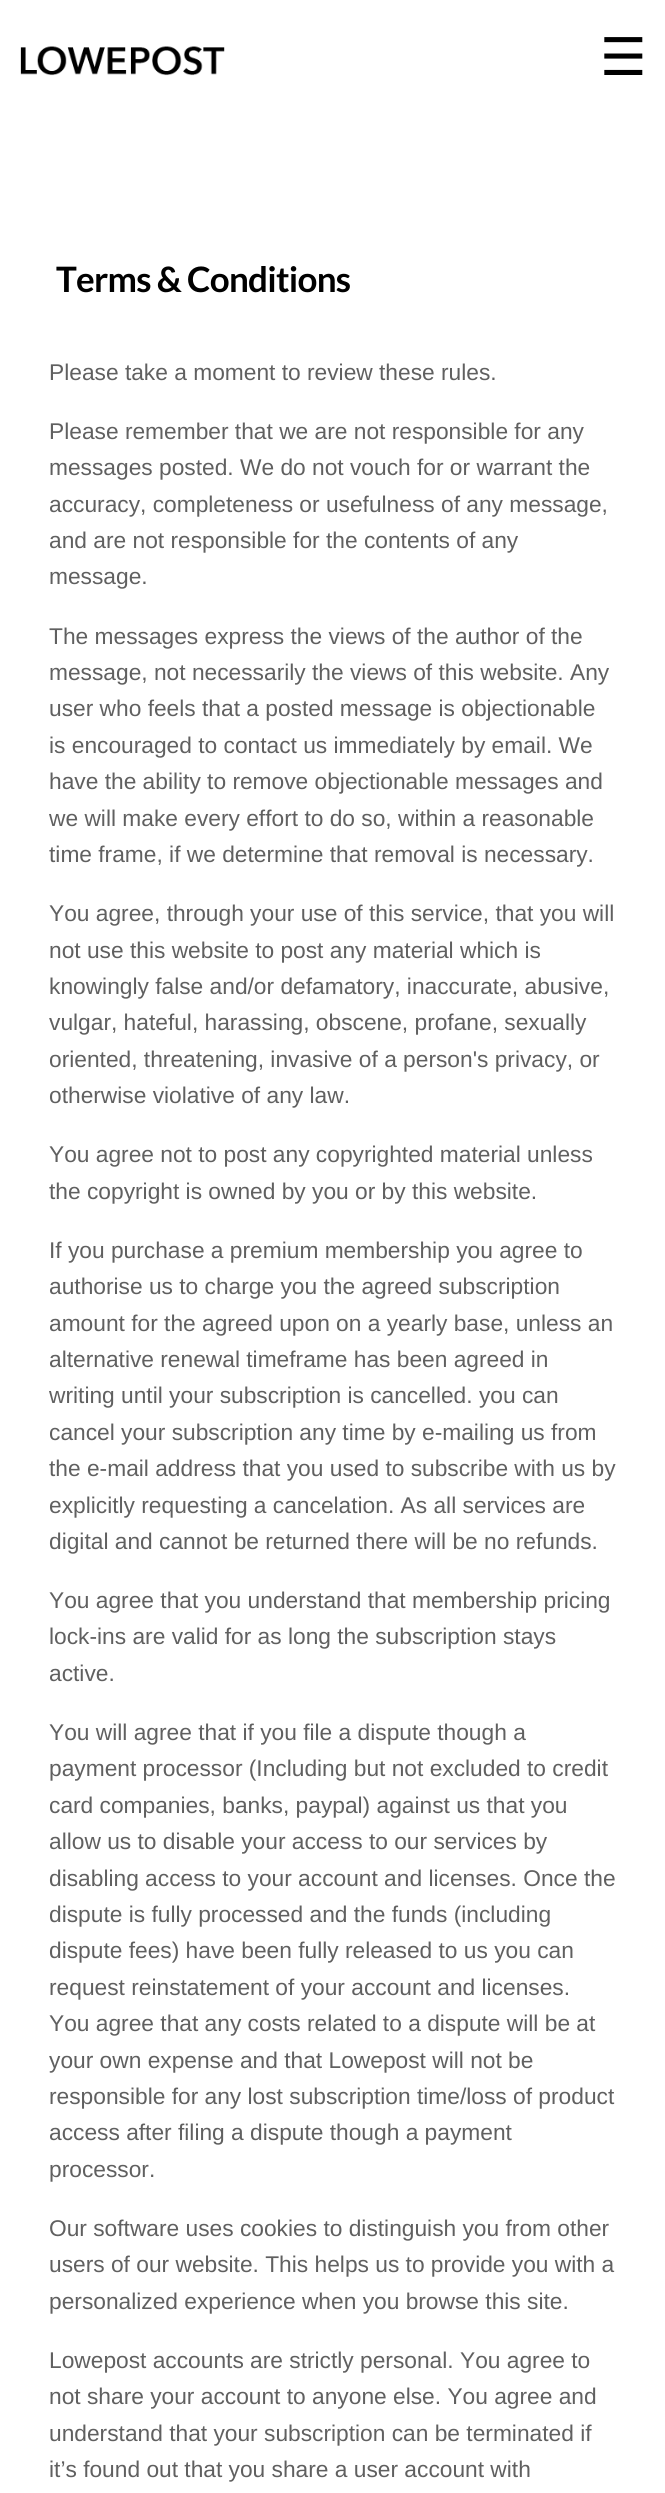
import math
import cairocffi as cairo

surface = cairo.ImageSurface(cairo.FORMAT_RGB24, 665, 2493)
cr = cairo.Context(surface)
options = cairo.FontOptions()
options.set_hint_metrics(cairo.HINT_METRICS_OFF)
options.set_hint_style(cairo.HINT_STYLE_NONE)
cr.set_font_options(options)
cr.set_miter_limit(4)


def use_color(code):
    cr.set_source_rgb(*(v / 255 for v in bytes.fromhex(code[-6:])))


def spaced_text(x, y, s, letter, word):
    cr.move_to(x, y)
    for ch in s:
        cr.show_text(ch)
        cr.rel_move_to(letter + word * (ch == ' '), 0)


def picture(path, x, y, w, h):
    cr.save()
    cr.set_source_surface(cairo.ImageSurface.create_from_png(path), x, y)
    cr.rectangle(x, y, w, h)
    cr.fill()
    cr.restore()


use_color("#ffffff")
cr.paint()
picture("img1.png", 20, 46, 205, 30)
cr.select_font_face("DejaVu Sans")
cr.set_font_size(52)
use_color("#000000")
cr.move_to(600, 75)
cr.show_text("☰")
cr.select_font_face("Lato", cairo.FONT_SLANT_NORMAL, cairo.FONT_WEIGHT_BOLD)
cr.set_font_size(35)
spaced_text(56, 292, "Terms & Conditions", -0.75, 0)
cr.select_font_face("Liberation Sans")
cr.set_font_size(22.75)
use_color("#606060")
cr.move_to(49, 380)
cr.show_text("Please take a moment to review these rules.")
cr.move_to(49, 439)
cr.show_text("Please remember that we are not responsible for any")
cr.move_to(49, 475)
cr.show_text("messages posted. We do not vouch for or warrant the")
cr.move_to(49, 512)
cr.show_text("accuracy, completeness or usefulness of any message,")
cr.move_to(49, 548)
cr.show_text("and are not responsible for the contents of any")
cr.move_to(49, 584)
cr.show_text("message.")
cr.move_to(49, 644)
cr.show_text("The messages express the views of the author of the")
cr.move_to(49, 680)
cr.show_text("message, not necessarily the views of this website. Any")
cr.move_to(49, 716)
cr.show_text("user who feels that a posted message is objectionable")
cr.move_to(49, 753)
cr.show_text("is encouraged to contact us immediately by email. We")
cr.move_to(49, 789)
cr.show_text("have the ability to remove objectionable messages and")
cr.move_to(49, 826)
cr.show_text("we will make every effort to do so, within a reasonable")
cr.move_to(49, 862)
cr.show_text("time frame, if we determine that removal is necessary.")
cr.move_to(49, 921)
cr.show_text("You agree, through your use of this service, that you will")
cr.move_to(49, 958)
cr.show_text("not use this website to post any material which is")
cr.move_to(49, 994)
cr.show_text("knowingly false and/or defamatory, inaccurate, abusive,")
cr.move_to(49, 1030)
cr.show_text("vulgar, hateful, harassing, obscene, profane, sexually")
cr.move_to(49, 1067)
cr.show_text("oriented, threatening, invasive of a person's privacy, or")
cr.move_to(49, 1103)
cr.show_text("otherwise violative of any law.")
cr.move_to(49, 1162)
cr.show_text("You agree not to post any copyrighted material unless")
cr.move_to(49, 1199)
cr.show_text("the copyright is owned by you or by this website.")
cr.move_to(49, 1258)
cr.show_text("If you purchase a premium membership you agree to")
cr.move_to(49, 1294)
cr.show_text("authorise us to charge you the agreed subscription")
cr.move_to(49, 1331)
cr.show_text("amount for the agreed upon on a yearly base, unless an")
cr.move_to(49, 1367)
cr.show_text("alternative renewal timeframe has been agreed in")
cr.move_to(49, 1403)
cr.show_text("writing until your subscription is cancelled. you can")
cr.move_to(49, 1440)
cr.show_text("cancel your subscription any time by e-mailing us from")
cr.move_to(49, 1476)
cr.show_text("the e-mail address that you used to subscribe with us by")
cr.move_to(49, 1513)
cr.show_text("explicitly requesting a cancelation. As all services are")
cr.move_to(49, 1549)
cr.show_text("digital and cannot be returned there will be no refunds.")
cr.move_to(49, 1608)
cr.show_text("You agree that you understand that membership pricing")
cr.move_to(49, 1644)
cr.show_text("lock-ins are valid for as long the subscription stays")
cr.move_to(49, 1681)
cr.show_text("active.")
cr.move_to(49, 1740)
cr.show_text("You will agree that if you file a dispute though a")
cr.move_to(49, 1776)
cr.show_text("payment processor (Including but not excluded to credit")
cr.move_to(49, 1813)
cr.show_text("card companies, banks, paypal) against us that you")
cr.move_to(49, 1849)
cr.show_text("allow us to disable your access to our services by")
cr.move_to(49, 1886)
cr.show_text("disabling access to your account and licenses. Once the")
cr.move_to(49, 1922)
cr.show_text("dispute is fully processed and the funds (including")
cr.move_to(49, 1958)
cr.show_text("dispute fees) have been fully released to us you can")
cr.move_to(49, 1995)
cr.show_text("request reinstatement of your account and licenses.")
cr.move_to(49, 2031)
cr.show_text("You agree that any costs related to a dispute will be at")
cr.move_to(49, 2068)
cr.show_text("your own expense and that Lowepost will not be")
cr.move_to(49, 2104)
cr.show_text("responsible for any lost subscription time/loss of product")
cr.move_to(49, 2140)
cr.show_text("access after filing a dispute though a payment")
cr.move_to(49, 2177)
cr.show_text("processor.")
cr.move_to(49, 2236)
cr.show_text("Our software uses cookies to distinguish you from other")
cr.move_to(49, 2272)
cr.show_text("users of our website. This helps us to provide you with a")
cr.move_to(49, 2309)
cr.show_text("personalized experience when you browse this site.")
cr.move_to(49, 2368)
cr.show_text("Lowepost accounts are strictly personal. You agree to")
cr.move_to(49, 2404)
cr.show_text("not share your account to anyone else. You agree and")
cr.move_to(49, 2441)
cr.show_text("understand that your subscription can be terminated if")
cr.move_to(49, 2477)
cr.show_text("it’s found out that you share a user account with")
surface.write_to_png("result.png")
